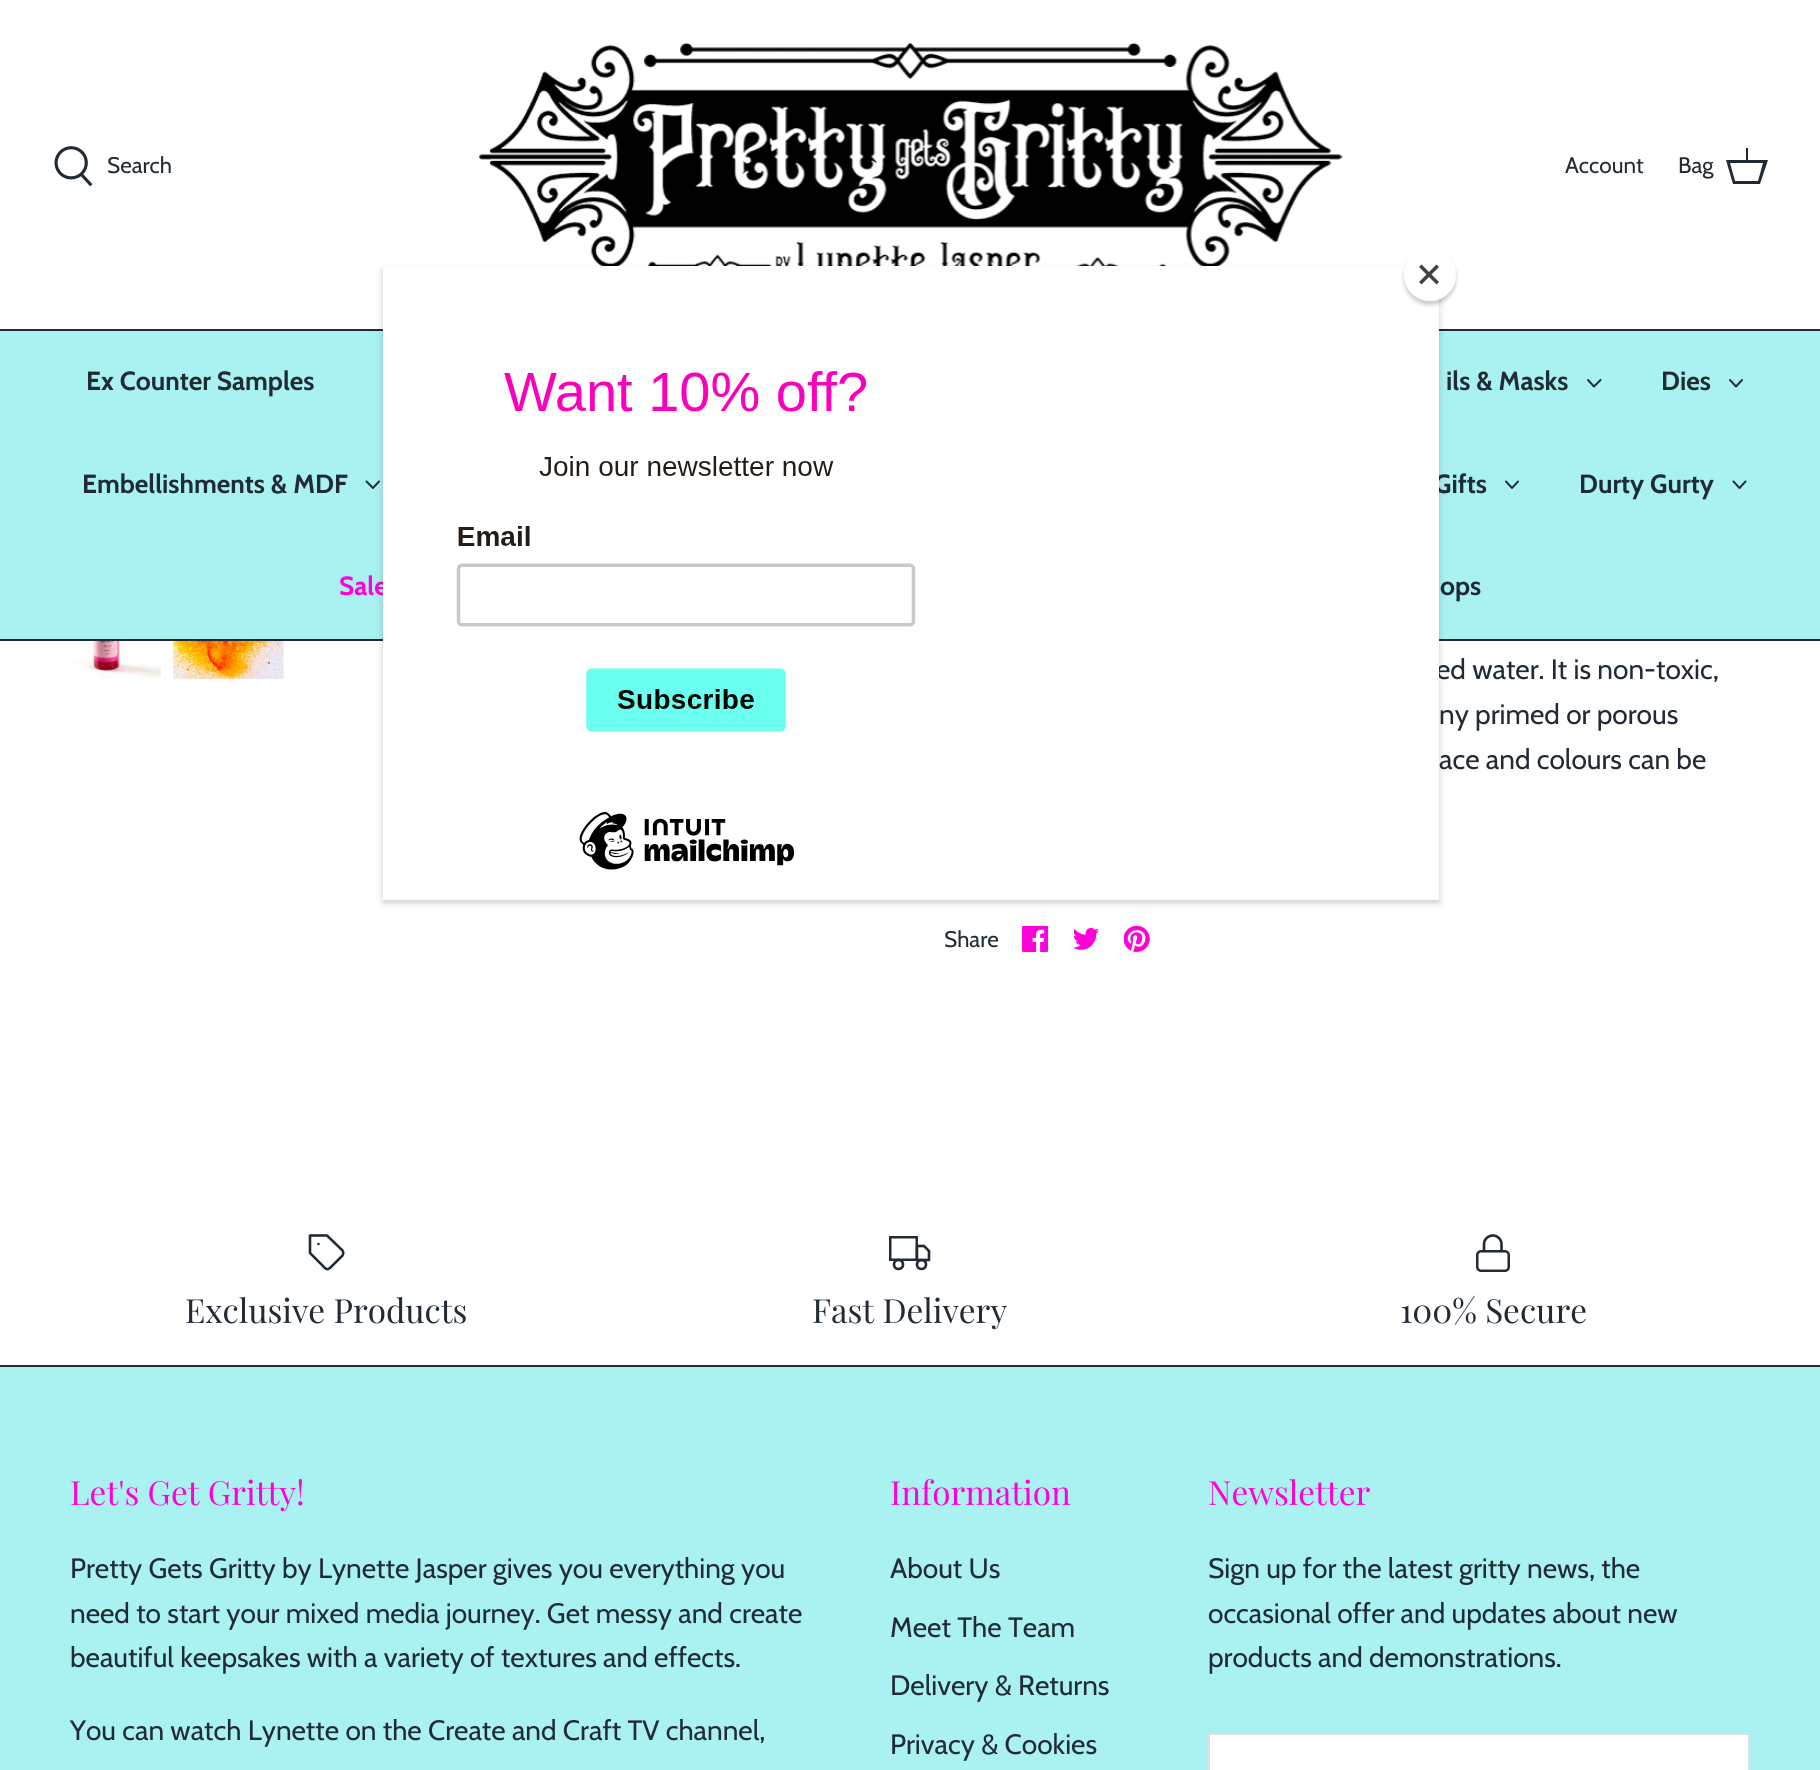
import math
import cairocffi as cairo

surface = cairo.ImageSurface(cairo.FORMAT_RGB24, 1820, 1770)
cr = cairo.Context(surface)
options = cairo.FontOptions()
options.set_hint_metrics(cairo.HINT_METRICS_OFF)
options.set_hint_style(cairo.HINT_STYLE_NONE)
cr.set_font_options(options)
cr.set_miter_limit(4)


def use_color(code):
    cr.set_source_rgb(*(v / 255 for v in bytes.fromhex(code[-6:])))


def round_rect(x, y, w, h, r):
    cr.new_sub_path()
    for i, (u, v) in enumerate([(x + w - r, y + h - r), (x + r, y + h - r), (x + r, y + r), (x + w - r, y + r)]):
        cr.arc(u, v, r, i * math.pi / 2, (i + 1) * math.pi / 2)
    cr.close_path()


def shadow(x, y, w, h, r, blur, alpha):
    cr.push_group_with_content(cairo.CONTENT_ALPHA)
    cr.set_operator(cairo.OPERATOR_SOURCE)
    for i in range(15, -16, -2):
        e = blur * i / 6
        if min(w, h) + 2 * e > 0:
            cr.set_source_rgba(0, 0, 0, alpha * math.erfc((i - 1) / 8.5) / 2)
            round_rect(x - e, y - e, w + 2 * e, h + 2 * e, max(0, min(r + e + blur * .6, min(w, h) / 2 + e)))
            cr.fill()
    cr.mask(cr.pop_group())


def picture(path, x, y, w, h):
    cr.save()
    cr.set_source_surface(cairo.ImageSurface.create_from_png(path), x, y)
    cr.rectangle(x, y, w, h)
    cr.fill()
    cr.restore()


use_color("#ffffff")
cr.paint()
use_color("#212b36")
cr.rectangle(0, 329, 1820, 2)
cr.fill()
picture("img1.png", 54, 146, 39, 41)
cr.select_font_face("Cabin")
cr.set_font_size(22.5)
cr.move_to(107, 173)
cr.show_text("Search")
picture("img2.png", 479, 42, 864, 224)
cr.move_to(1565, 173)
cr.show_text("Account")
cr.move_to(1678, 173)
cr.show_text("Bag")
cr.new_path()
cr.move_to(1746, 160)
cr.line_to(1746, 148)
cr.line_to(1748, 148)
cr.line_to(1748, 160)
cr.line_to(1768, 160)
cr.line_to(1760, 184)
cr.line_to(1733, 184)
cr.line_to(1726, 160)
cr.close_path()
cr.move_to(1730, 163)
cr.line_to(1735, 181)
cr.line_to(1758, 181)
cr.line_to(1763, 163)
cr.close_path()
cr.fill()
cr.rectangle(0, 639, 1820, 2)
cr.fill()
use_color("#aaf1f1")
cr.rectangle(0, 331, 1820, 308)
cr.fill()
cr.select_font_face("Cabin", cairo.FONT_SLANT_NORMAL, cairo.FONT_WEIGHT_BOLD)
cr.set_font_size(26.25)
use_color("#212b36")
cr.move_to(86, 390)
cr.show_text("Ex Counter Samples")
cr.move_to(1446, 390)
cr.show_text("ils & Masks")
cr.new_path()
cr.move_to(1588, 380)
cr.line_to(1594, 386.5)
cr.line_to(1600.5, 380)
cr.set_line_cap(cairo.LINE_CAP_ROUND)
cr.set_line_join(cairo.LINE_JOIN_ROUND)
cr.stroke()
cr.move_to(1661, 390)
cr.show_text("Dies")
cr.new_path()
cr.move_to(1730, 380)
cr.line_to(1736, 386.5)
cr.line_to(1742, 380)
cr.stroke()
cr.move_to(82, 493)
cr.show_text("Embellishments & MDF")
cr.new_path()
cr.move_to(366.5, 481.5)
cr.line_to(373, 488)
cr.line_to(379, 481.5)
cr.stroke()
cr.move_to(1434, 493)
cr.show_text("Gifts")
cr.new_path()
cr.move_to(1506, 481.5)
cr.line_to(1512, 488)
cr.line_to(1518, 481.5)
cr.stroke()
cr.move_to(1579, 493)
cr.show_text("Durty Gurty")
cr.new_path()
cr.move_to(1733.5, 481.5)
cr.line_to(1739.5, 488)
cr.line_to(1745.5, 481.5)
cr.stroke()
use_color("#ff00d9")
cr.move_to(339, 595)
cr.show_text("Sale")
use_color("#212b36")
cr.move_to(1440, 595)
cr.show_text("ops")
use_color("#000000")
shadow(383, 270, 1056, 633, 0, 3.5, 0.2)
cr.select_font_face("Cabin")
cr.set_font_size(28)
use_color("#212b36")
cr.move_to(1436, 679)
cr.show_text("ed water. It is non-toxic,")
picture("img3.png", 383, 266, 1056, 634)
use_color("#000000")
shadow(1404, 252, 52, 53, 26, 2, 0.2)
use_color("#ffffff")
cr.arc(1430, 275, 26, 0, 2 * math.pi)
cr.fill()
use_color("#414141")
cr.new_path()
cr.move_to(1436.5, 264.5)
cr.line_to(1439, 267)
cr.line_to(1421.5, 284.5)
cr.line_to(1419, 282)
cr.close_path()
cr.fill()
cr.new_path()
cr.move_to(1419, 267)
cr.line_to(1421.5, 264.5)
cr.line_to(1439, 282)
cr.line_to(1436.5, 284.5)
cr.close_path()
cr.fill()
picture("img4.png", 72, 641, 89, 38)
picture("img5.png", 173, 641, 111, 39)
use_color("#212b36")
cr.move_to(1439, 724)
cr.show_text("ny primed or porous")
cr.move_to(1439, 769)
cr.show_text("ace and colours can be")
cr.set_font_size(22.5)
cr.move_to(944, 947)
cr.show_text("Share")
picture("img6.png", 1022, 926, 26, 26)
picture("img7.png", 1073, 927, 26, 23)
picture("img8.png", 1124, 926, 26, 26)
use_color("#aaf1f1")
cr.rectangle(0, 1367, 1820, 403)
cr.fill()
cr.new_path()
cr.move_to(342.5, 1255.5)
cr.line_to(332, 1266)
cr.curve_to(327.5, 1270.5, 326.5, 1270, 322.5, 1265.5)
cr.line_to(310, 1253)
cr.line_to(310, 1235.5)
cr.line_to(327, 1235.5)
cr.line_to(342.5, 1250.5)
cr.curve_to(343.5, 1252, 343.5, 1254, 342.5, 1255.5)
cr.close_path()
cr.move_to(318.5, 1244)
cr.line_to(318.5, 1244)
use_color("#212b36")
cr.set_line_width(2.6)
cr.stroke()
cr.select_font_face("Playfair Display")
cr.set_font_size(33.25)
cr.move_to(185, 1323)
cr.show_text("Exclusive Products")
cr.rectangle(890.25, 1237.25, 26.5, 22.5)
cr.set_line_width(2.5)
cr.set_line_cap(cairo.LINE_CAP_BUTT)
cr.set_line_join(cairo.LINE_JOIN_MITER)
cr.stroke()
cr.new_path()
cr.move_to(917, 1246)
cr.line_to(924, 1246)
cr.line_to(929, 1251)
cr.line_to(929, 1260)
cr.line_to(917, 1260)
cr.close_path()
cr.set_line_width(2.6)
cr.set_line_cap(cairo.LINE_CAP_ROUND)
cr.set_line_join(cairo.LINE_JOIN_ROUND)
cr.stroke()
cr.arc(898.5, 1264.5, 4.5, 0, 2 * math.pi)
cr.set_line_cap(cairo.LINE_CAP_BUTT)
cr.set_line_join(cairo.LINE_JOIN_MITER)
cr.stroke()
cr.arc(921.5, 1264.5, 4.5, 0, 2 * math.pi)
cr.stroke()
cr.move_to(812, 1323)
cr.show_text("Fast Delivery")
round_rect(1477.25, 1251.25, 31.5, 19.5, 3.75)
cr.set_line_width(2.5)
cr.stroke()
cr.new_path()
cr.move_to(1484, 1251)
cr.line_to(1484, 1244)
cr.curve_to(1484, 1239.5, 1488, 1235.5, 1493, 1235.5)
cr.curve_to(1497.5, 1235.5, 1501.5, 1239.5, 1501.5, 1244)
cr.line_to(1501.5, 1251)
cr.set_line_width(2.6)
cr.set_line_cap(cairo.LINE_CAP_ROUND)
cr.set_line_join(cairo.LINE_JOIN_ROUND)
cr.stroke()
cr.move_to(1400, 1323)
cr.show_text("100% Secure")
cr.rectangle(0, 1365, 1820, 2)
cr.fill()
use_color("#ff00d9")
cr.move_to(70, 1505)
cr.show_text("Let's Get Gritty!")
cr.select_font_face("Cabin")
cr.set_font_size(28)
use_color("#212b36")
cr.move_to(70, 1578)
cr.show_text("Pretty Gets Gritty by Lynette Jasper gives you everything you")
cr.move_to(70, 1623)
cr.show_text("need to start your mixed media journey. Get messy and create")
cr.move_to(70, 1667)
cr.show_text("beautiful keepsakes with a variety of textures and effects.")
cr.move_to(70, 1740)
cr.show_text("You can watch Lynette on the Create and Craft TV channel,")
cr.select_font_face("Playfair Display")
cr.set_font_size(33.25)
use_color("#ff00d9")
cr.move_to(890, 1505)
cr.show_text("Information")
cr.select_font_face("Cabin")
cr.set_font_size(28)
use_color("#212b36")
cr.move_to(890, 1578)
cr.show_text("About Us")
cr.move_to(890, 1637)
cr.show_text("Meet The Team")
cr.move_to(890, 1695)
cr.show_text("Delivery & Returns")
cr.move_to(890, 1754)
cr.show_text("Privacy & Cookies")
cr.select_font_face("Playfair Display")
cr.set_font_size(33.25)
use_color("#ff00d9")
cr.move_to(1208, 1505)
cr.show_text("Newsletter")
cr.select_font_face("Cabin")
cr.set_font_size(28)
use_color("#212b36")
cr.move_to(1208, 1578)
cr.show_text("Sign up for the latest gritty news, the")
cr.move_to(1208, 1623)
cr.show_text("occasional offer and updates about new")
cr.move_to(1208, 1667)
cr.show_text("products and demonstrations.")
use_color("#ffffff")
cr.rectangle(1209, 1734, 540, 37)
cr.fill_preserve()
use_color("#dedfe1")
cr.set_line_width(2)
cr.set_line_cap(cairo.LINE_CAP_BUTT)
cr.set_line_join(cairo.LINE_JOIN_MITER)
cr.stroke()
surface.write_to_png("result.png")
